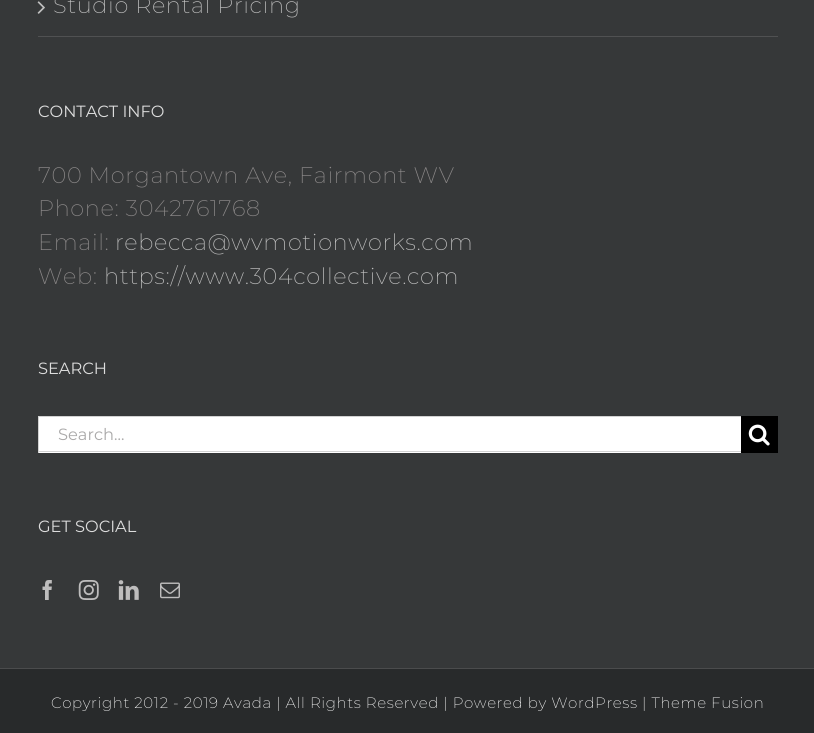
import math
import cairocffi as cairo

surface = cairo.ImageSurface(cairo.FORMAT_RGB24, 814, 733)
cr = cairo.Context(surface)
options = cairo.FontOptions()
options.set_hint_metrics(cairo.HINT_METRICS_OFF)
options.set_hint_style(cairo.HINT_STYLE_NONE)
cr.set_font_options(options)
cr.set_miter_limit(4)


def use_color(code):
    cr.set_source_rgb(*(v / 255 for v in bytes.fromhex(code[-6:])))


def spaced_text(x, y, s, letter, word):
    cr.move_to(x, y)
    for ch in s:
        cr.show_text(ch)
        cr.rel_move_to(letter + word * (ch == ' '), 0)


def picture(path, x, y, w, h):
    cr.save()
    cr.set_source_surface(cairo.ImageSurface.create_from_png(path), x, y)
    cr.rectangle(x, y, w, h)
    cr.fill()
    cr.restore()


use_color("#363839")
cr.paint()
use_color("#505152")
cr.rectangle(38, 36, 740, 1)
cr.fill()
picture("img1.png", 37, 1, 8, 13)
cr.select_font_face("Montserrat ExtraLight")
cr.set_font_size(22.5)
use_color("#bfbfbf")
spaced_text(53, 13, "Studio Rental Pricing", 0.62, 0)
cr.select_font_face("Montserrat")
cr.set_font_size(16.25)
use_color("#dddddd")
cr.move_to(38, 117)
cr.show_text("CONTACT INFO")
cr.select_font_face("Montserrat ExtraLight")
cr.set_font_size(22.5)
use_color("#8c8989")
spaced_text(38, 183, "700 Morgantown Ave, Fairmont WV", 0.62, 0)
spaced_text(38, 216, "Phone: 3042761768", 0.62, 0)
spaced_text(38, 250, "Email:", 0.62, 0)
use_color("#bfbfbf")
spaced_text(115, 250, "rebecca@wvmotionworks.com", 0.62, 0)
use_color("#8c8989")
spaced_text(38, 284, "Web:", 0.62, 0)
use_color("#bfbfbf")
spaced_text(104, 284, "https://www.304collective.com", 0.62, 0)
cr.select_font_face("Montserrat")
cr.set_font_size(16.25)
use_color("#dddddd")
cr.move_to(38, 374)
cr.show_text("SEARCH")
use_color("#ffffff")
cr.rectangle(39, 417, 702, 36)
cr.fill()
use_color("#d2d2d2")
cr.rectangle(38, 416, 703, 1)
cr.fill()
cr.rectangle(38, 451, 703, 1)
cr.fill()
cr.rectangle(38, 416, 1, 37)
cr.fill()
use_color("#aaa9a9")
cr.move_to(58, 440)
cr.show_text("Search...")
use_color("#000000")
cr.rectangle(741, 416, 37, 37)
cr.fill()
picture("img2.png", 748, 424, 22, 22)
use_color("#dddddd")
cr.move_to(38, 532)
cr.show_text("GET SOCIAL")
picture("img3.png", 42, 580, 10, 20)
picture("img4.png", 78, 580, 21, 20)
picture("img5.png", 118, 580, 21, 20)
picture("img6.png", 160, 582, 20, 17)
use_color("#282a2b")
cr.rectangle(0, 669, 814, 64)
cr.fill()
use_color("#4b4c4d")
cr.rectangle(0, 668, 814, 1)
cr.fill()
cr.select_font_face("Montserrat ExtraLight")
cr.set_font_size(15)
use_color("#ffffff")
spaced_text(51, 708, "Copyright 2012 - 2019 Avada | All Rights Reserved | Powered by WordPress | Theme Fusion", 0.62, 0)
surface.write_to_png("result.png")
